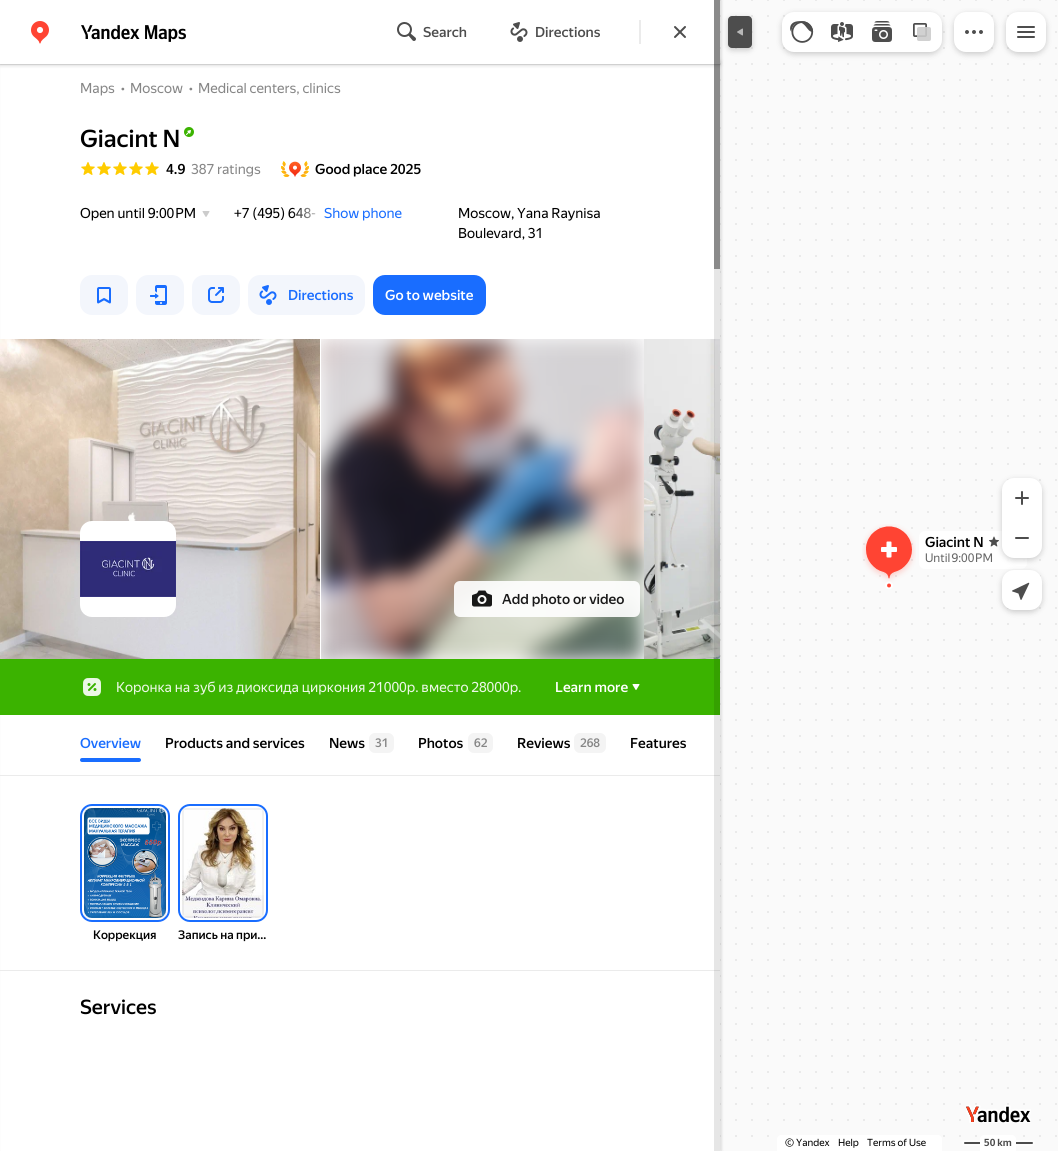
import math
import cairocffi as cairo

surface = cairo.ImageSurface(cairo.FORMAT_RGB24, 1058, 1151)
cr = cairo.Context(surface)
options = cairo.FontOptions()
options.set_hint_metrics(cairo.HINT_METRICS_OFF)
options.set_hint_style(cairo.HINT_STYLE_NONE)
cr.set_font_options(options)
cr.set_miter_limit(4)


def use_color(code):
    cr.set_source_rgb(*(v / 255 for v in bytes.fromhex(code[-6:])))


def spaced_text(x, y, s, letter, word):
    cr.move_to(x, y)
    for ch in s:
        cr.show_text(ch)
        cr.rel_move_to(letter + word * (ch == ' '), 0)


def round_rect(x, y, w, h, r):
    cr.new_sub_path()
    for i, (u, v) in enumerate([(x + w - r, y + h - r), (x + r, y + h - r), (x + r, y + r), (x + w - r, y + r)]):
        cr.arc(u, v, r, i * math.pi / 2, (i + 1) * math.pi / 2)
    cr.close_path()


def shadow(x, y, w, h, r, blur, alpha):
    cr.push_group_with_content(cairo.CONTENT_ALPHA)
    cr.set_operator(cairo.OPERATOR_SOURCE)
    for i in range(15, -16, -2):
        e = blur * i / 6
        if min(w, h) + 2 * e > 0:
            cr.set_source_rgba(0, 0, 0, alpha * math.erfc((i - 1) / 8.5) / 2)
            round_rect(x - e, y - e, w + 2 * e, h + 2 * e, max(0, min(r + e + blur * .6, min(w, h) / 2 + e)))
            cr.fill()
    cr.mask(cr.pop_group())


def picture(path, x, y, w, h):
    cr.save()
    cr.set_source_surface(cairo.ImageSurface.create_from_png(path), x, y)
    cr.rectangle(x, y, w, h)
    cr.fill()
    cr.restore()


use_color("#ffffff")
cr.paint()
picture("img1.png", 720, 0, 338, 1151)
use_color("#000000")
shadow(2, 0, 720, 1151, 0, 1, 0.1)
use_color("#ffffff")
cr.rectangle(1, 65, 719, 1086)
cr.fill()
use_color("#ebebeb")
cr.rectangle(0, 64, 720, 1)
cr.fill()
use_color("#000000")
shadow(0, 61, 720, 4, 0, 2, 0.2)
shadow(728, 18, 24, 32, 4, 3, 0.2)
use_color("#ffffff")
cr.rectangle(0, 0, 720, 64)
cr.fill()
picture("img2.png", 31, 21, 18, 23)
picture("img3.png", 81, 25, 105, 17)
picture("img4.png", 397, 22, 19, 19)
cr.select_font_face("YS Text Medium")
cr.set_font_size(14)
use_color("#4d4d4d")
cr.move_to(423, 37)
cr.show_text("Search")
picture("img5.png", 510, 22, 18, 20)
cr.move_to(535, 37)
cr.show_text("Directions")
use_color("#ebebeb")
cr.rectangle(639, 20, 2, 24)
cr.fill()
picture("img6.png", 674, 26, 12, 12)
cr.select_font_face("YS Text")
use_color("#878787")
cr.move_to(80, 93)
cr.show_text("Maps")
cr.move_to(121, 93)
cr.show_text("•")
cr.move_to(130, 93)
cr.show_text("Moscow")
cr.move_to(189, 93)
cr.show_text("•")
cr.move_to(198, 93)
cr.show_text("Medical centers, clinics")
cr.select_font_face("YS Text Medium")
cr.set_font_size(24)
use_color("#000000")
cr.move_to(80, 147)
cr.show_text("Giacint N")
picture("img7.png", 184, 127, 10, 10)
picture("img8.png", 81, 162, 14, 13)
picture("img8.png", 97, 162, 14, 13)
picture("img8.png", 113, 162, 14, 13)
picture("img8.png", 129, 162, 14, 13)
picture("img8.png", 145, 162, 14, 13)
cr.set_font_size(14)
cr.move_to(166, 174)
cr.show_text("4.9")
cr.select_font_face("YS Text")
use_color("#878787")
cr.move_to(191, 174)
cr.show_text("387 ratings")
picture("img9.png", 281, 161, 28, 16)
cr.select_font_face("YS Text Medium")
use_color("#000000")
cr.move_to(315, 174)
cr.show_text("Good place 2025")
cr.select_font_face("YS Text")
cr.move_to(80, 218)
cr.show_text("Open until 9:00 PM")
picture("img10.png", 202, 211, 8, 6)
cr.move_to(234, 218)
cr.show_text("+7 (495) 648-")
gradient = cairo.LinearGradient(292, 213, 324, 213)
gradient.add_color_stop_rgba(0, 1, 1, 1, 0)
gradient.add_color_stop_rgba(1, 1, 1, 1, 1)
cr.set_source(gradient)
cr.rectangle(293, 207, 23, 12)
cr.fill()
use_color("#196dff")
cr.move_to(324, 218)
cr.show_text("Show phone")
use_color("#000000")
cr.move_to(458, 218)
cr.show_text("Moscow, Yana Raynisa")
cr.move_to(458, 238)
cr.show_text("Boulevard, 31")
use_color("#f3f6fc")
round_rect(80, 275, 48, 40, 12)
cr.fill()
picture("img11.png", 97, 287, 14, 17)
round_rect(136, 275, 48, 40, 12)
cr.fill()
picture("img12.png", 150, 285, 17, 20)
round_rect(192, 275, 48, 40, 12)
cr.fill()
picture("img13.png", 208, 287, 16, 16)
round_rect(248, 275, 117, 40, 12)
cr.fill()
picture("img14.png", 259, 285, 18, 20)
cr.select_font_face("YS Text Medium")
use_color("#196dff")
cr.move_to(288, 300)
cr.show_text("Directions")
round_rect(373, 275, 113, 40, 12)
cr.fill()
use_color("#ffffff")
cr.move_to(385, 300)
cr.show_text("Go to website")
picture("img15.png", 0, 339, 320, 320)
picture("img16.png", 321, 339, 322, 320)
picture("img17.png", 643, 339, 77, 320)
round_rect(80, 521, 96, 96, 12)
cr.fill()
picture("img18.png", 80, 541, 96, 56)
cr.set_source_rgba(1, 1, 1, 0.9)
round_rect(454, 581, 186, 36, 6)
cr.fill()
picture("img19.png", 472, 590, 20, 17)
use_color("#191919")
cr.move_to(502, 604)
cr.show_text("Add photo or video")
use_color("#3bb300")
cr.rectangle(0, 659, 720, 56)
cr.fill()
picture("img20.png", 83, 678, 18, 18)
cr.select_font_face("YS Text")
use_color("#ebf7e6")
cr.move_to(116, 692)
cr.show_text("Коронка на зуб из диоксида циркония 21000р. вместо 28000р.")
cr.select_font_face("YS Text Medium")
use_color("#ffffff")
cr.move_to(555, 692)
cr.show_text("Learn more")
picture("img21.png", 632, 684, 8, 6)
use_color("#196dff")
cr.move_to(80, 748)
cr.show_text("Overview")
use_color("#000000")
cr.move_to(165, 748)
cr.show_text("Products and services")
cr.move_to(329, 748)
cr.show_text("News")
use_color("#f4f4f4")
round_rect(369, 733, 25, 20, 6)
cr.fill()
cr.set_font_size(12)
use_color("#878787")
cr.move_to(375, 747)
cr.show_text("31")
cr.set_font_size(14)
use_color("#000000")
cr.move_to(418, 748)
cr.show_text("Photos")
use_color("#f4f4f4")
round_rect(468, 733, 25, 20, 6)
cr.fill()
cr.set_font_size(12)
use_color("#878787")
cr.move_to(474, 747)
cr.show_text("62")
cr.set_font_size(14)
use_color("#000000")
cr.move_to(517, 748)
cr.show_text("Reviews")
use_color("#f4f4f4")
round_rect(574, 733, 32, 20, 6)
cr.fill()
cr.set_font_size(12)
use_color("#878787")
cr.move_to(580, 747)
cr.show_text("268")
cr.set_font_size(14)
use_color("#000000")
cr.move_to(630, 748)
cr.show_text("Features")
use_color("#196dff")
round_rect(80, 758, 61, 4, 2)
cr.fill()
use_color("#ebebeb")
cr.rectangle(0, 775, 720, 1)
cr.fill()
round_rect(81, 805, 88, 116, 11)
use_color("#196dff")
cr.stroke()
use_color("#f6f6f6")
round_rect(84, 808, 82, 110, 8)
cr.fill()
picture("img22.png", 84, 808, 82, 110)
cr.rectangle(85, 809, 80, 108)
cr.set_source_rgba(0, 0, 0, 0.05)
cr.stroke()
cr.set_font_size(12)
use_color("#000000")
cr.move_to(93, 939)
cr.show_text("Коррекция")
round_rect(179, 805, 88, 116, 11)
use_color("#196dff")
cr.stroke()
use_color("#f6f6f6")
round_rect(182, 808, 82, 110, 8)
cr.fill()
picture("img23.png", 182, 808, 82, 110)
cr.rectangle(183, 809, 80, 108)
cr.set_source_rgba(0, 0, 0, 0.05)
cr.stroke()
use_color("#000000")
cr.move_to(178, 939)
cr.show_text("Запись на при…")
use_color("#ebebeb")
cr.rectangle(0, 970, 720, 1)
cr.fill()
cr.set_font_size(20)
use_color("#000000")
cr.move_to(80, 1014)
cr.show_text("Services")
cr.set_source_rgba(0, 0, 0, 0.1)
cr.rectangle(714, 0, 6, 1151)
cr.fill()
cr.set_source_rgba(0, 0, 0, 0.4)
cr.rectangle(714, 0, 6, 269)
cr.fill()
use_color("#4d4d4d")
round_rect(728, 16, 24, 32, 4)
cr.fill()
picture("img24.png", 737, 28, 6, 8)
use_color("#000000")
shadow(782, 14, 160, 40, 12, 3, 0.2)
use_color("#ffffff")
cr.new_path()
cr.move_to(794, 12)
cr.line_to(822, 12)
cr.line_to(822, 52)
cr.line_to(794, 52)
cr.curve_to(787.5, 52, 782, 46.5, 782, 40)
cr.line_to(782, 24)
cr.curve_to(782, 17.5, 787.5, 12, 794, 12)
cr.close_path()
cr.fill()
picture("img25.png", 790, 21, 24, 22)
cr.rectangle(822, 12, 80, 40)
cr.fill()
picture("img26.png", 831, 22, 22, 20)
cr.new_path()
cr.move_to(902, 12)
cr.line_to(930, 12)
cr.curve_to(936.5, 12, 942, 17.5, 942, 24)
cr.line_to(942, 40)
cr.curve_to(942, 46.5, 936.5, 52, 930, 52)
cr.line_to(902, 52)
cr.close_path()
cr.fill()
picture("img27.png", 913, 23, 18, 18)
picture("img28.png", 872, 21, 20, 21)
use_color("#000000")
shadow(954, 14, 40, 40, 12, 3, 0.2)
use_color("#ffffff")
round_rect(954, 12, 40, 40, 12)
cr.fill()
picture("img29.png", 965, 30, 18, 4)
use_color("#000000")
shadow(1006, 14, 40, 40, 12, 3, 0.2)
use_color("#ffffff")
round_rect(1006, 12, 40, 40, 12)
cr.fill()
picture("img30.png", 1017, 26, 18, 12)
cr.set_source_rgba(1, 1, 1, 0.9)
round_rect(919, 531, 108, 38, 6)
cr.fill()
picture("img37.png", 989, 536, 10, 11)
use_color("#000000")
shadow(1002, 480, 40, 80, 12, 3, 0.2)
use_color("#ffffff")
cr.new_path()
cr.move_to(1014, 478)
cr.line_to(1030, 478)
cr.curve_to(1036.5, 478, 1042, 483.5, 1042, 490)
cr.line_to(1042, 518)
cr.line_to(1002, 518)
cr.line_to(1002, 490)
cr.curve_to(1002, 483.5, 1007.5, 478, 1014, 478)
cr.close_path()
cr.fill()
picture("img31.png", 1015, 491, 14, 14)
cr.new_path()
cr.move_to(1002, 518)
cr.line_to(1042, 518)
cr.line_to(1042, 546)
cr.curve_to(1042, 552.5, 1036.5, 558, 1030, 558)
cr.line_to(1014, 558)
cr.curve_to(1007.5, 558, 1002, 552.5, 1002, 546)
cr.close_path()
cr.fill()
picture("img32.png", 1015, 537, 14, 2)
use_color("#000000")
shadow(1002, 572, 40, 40, 12, 3, 0.2)
use_color("#ffffff")
round_rect(1002, 570, 40, 40, 12)
cr.fill()
picture("img33.png", 1012, 582, 18, 18)
picture("img34.png", 966, 1104, 65, 19)
cr.new_path()
cr.move_to(781, 1135)
cr.line_to(938, 1135)
cr.curve_to(940, 1135, 942, 1137, 942, 1139)
cr.line_to(942, 1151)
cr.line_to(777, 1151)
cr.line_to(777, 1139)
cr.curve_to(777, 1137, 779, 1135, 781, 1135)
cr.close_path()
cr.fill()
cr.select_font_face("YS Text")
cr.set_font_size(10)
use_color("#000000")
cr.move_to(785, 1146)
cr.show_text("© Yandex")
cr.move_to(838, 1146)
cr.show_text("Help")
cr.move_to(867, 1146)
cr.show_text("Terms of Use")
use_color("#fdfdfd")
round_rect(962, 1140, 73, 6, 3)
cr.fill()
use_color("#4d4d4d")
round_rect(964, 1142, 69, 2, 1)
cr.fill()
use_color("#ffffff")
cr.new_path()
cr.move_to(984, 1135)
cr.line_to(1012, 1135)
cr.curve_to(1014, 1135, 1016, 1137, 1016, 1139)
cr.line_to(1016, 1151)
cr.line_to(980, 1151)
cr.line_to(980, 1139)
cr.curve_to(980, 1137, 982, 1135, 984, 1135)
cr.close_path()
cr.fill()
cr.select_font_face("YS Text", cairo.FONT_SLANT_NORMAL, cairo.FONT_WEIGHT_BOLD)
use_color("#4d4d4d")
cr.move_to(984, 1146)
cr.show_text("50 km")
picture("img35.png", 862, 524, 54, 65)
picture("img36.png", 881, 541, 16, 17)
cr.select_font_face("YS Text Medium")
cr.set_font_size(14)
use_color("#000000")
cr.move_to(925, 547)
cr.show_text("Giacint N")
cr.select_font_face("YS Text")
cr.set_font_size(12)
use_color("#666666")
spaced_text(925, 562, "Until 9:00 PM", 0, -1)
surface.write_to_png("result.png")
